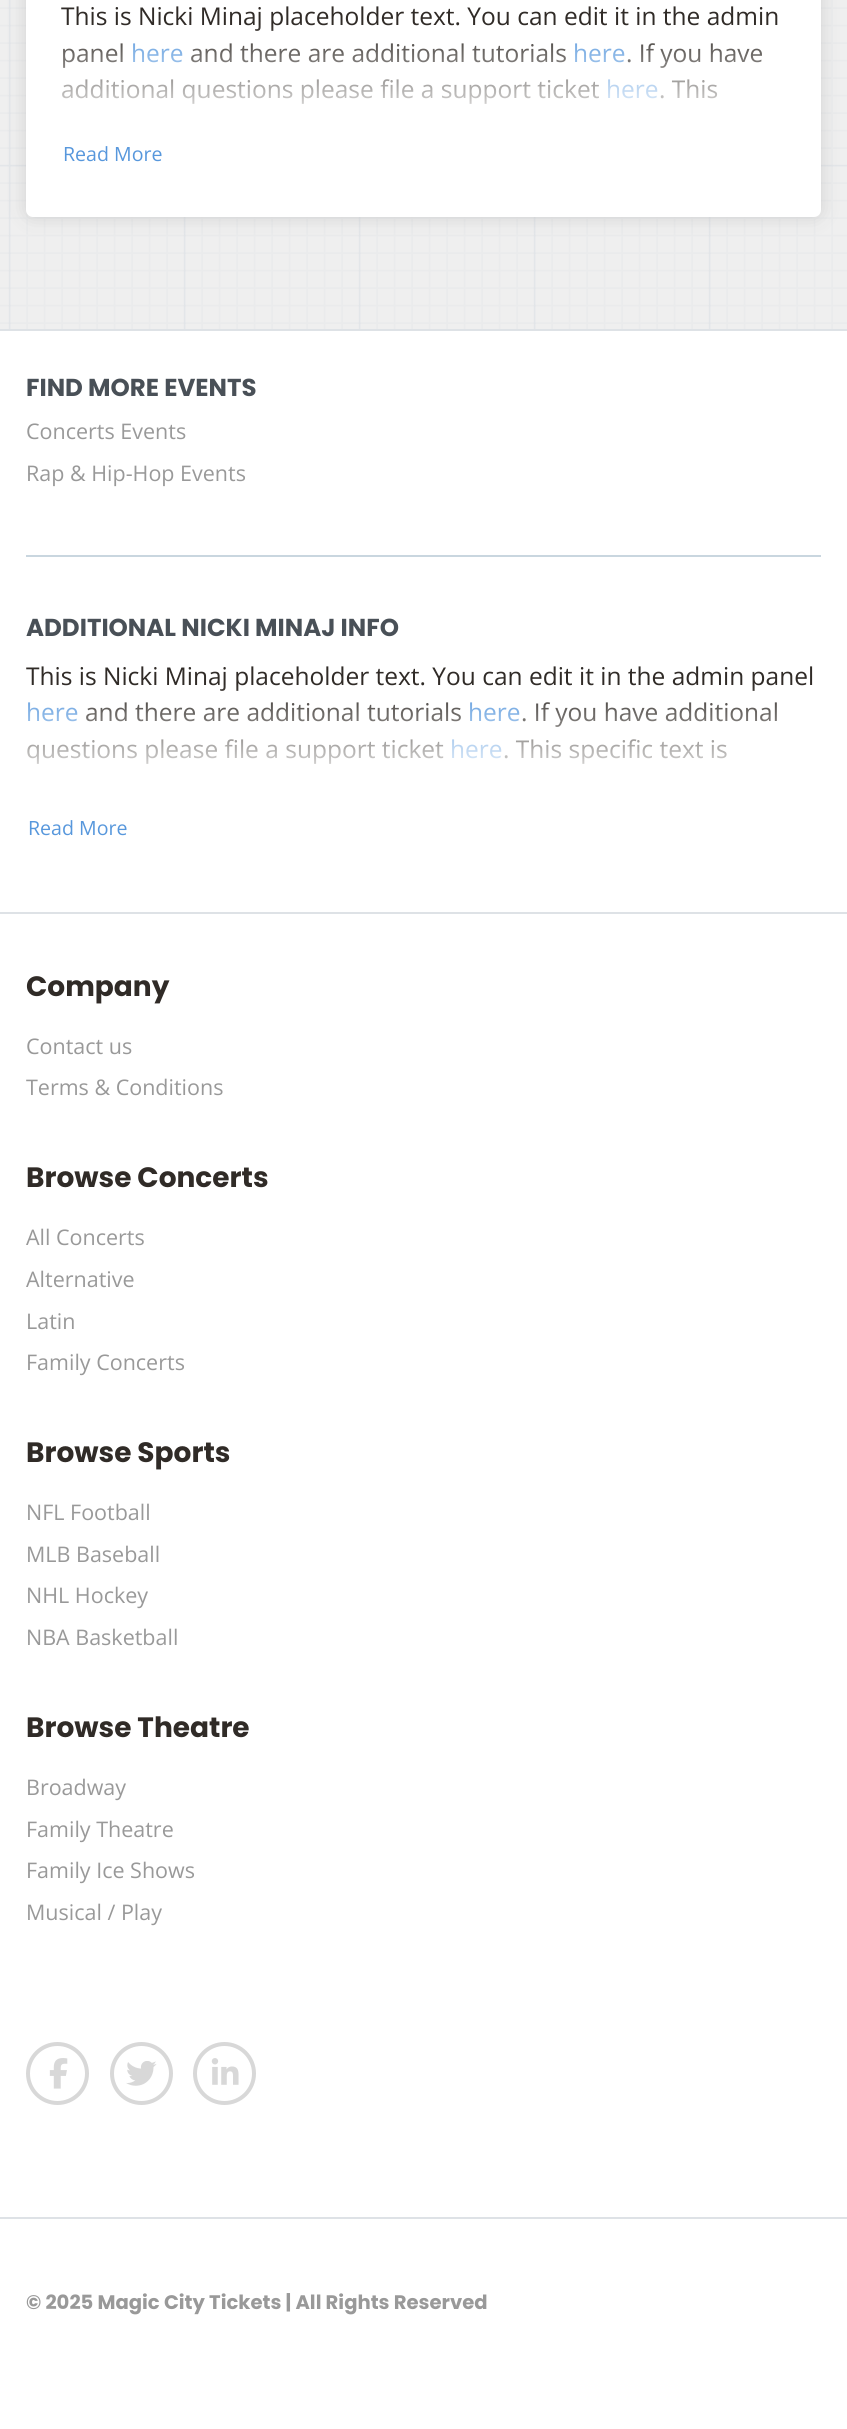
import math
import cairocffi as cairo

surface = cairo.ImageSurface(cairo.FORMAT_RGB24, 847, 2429)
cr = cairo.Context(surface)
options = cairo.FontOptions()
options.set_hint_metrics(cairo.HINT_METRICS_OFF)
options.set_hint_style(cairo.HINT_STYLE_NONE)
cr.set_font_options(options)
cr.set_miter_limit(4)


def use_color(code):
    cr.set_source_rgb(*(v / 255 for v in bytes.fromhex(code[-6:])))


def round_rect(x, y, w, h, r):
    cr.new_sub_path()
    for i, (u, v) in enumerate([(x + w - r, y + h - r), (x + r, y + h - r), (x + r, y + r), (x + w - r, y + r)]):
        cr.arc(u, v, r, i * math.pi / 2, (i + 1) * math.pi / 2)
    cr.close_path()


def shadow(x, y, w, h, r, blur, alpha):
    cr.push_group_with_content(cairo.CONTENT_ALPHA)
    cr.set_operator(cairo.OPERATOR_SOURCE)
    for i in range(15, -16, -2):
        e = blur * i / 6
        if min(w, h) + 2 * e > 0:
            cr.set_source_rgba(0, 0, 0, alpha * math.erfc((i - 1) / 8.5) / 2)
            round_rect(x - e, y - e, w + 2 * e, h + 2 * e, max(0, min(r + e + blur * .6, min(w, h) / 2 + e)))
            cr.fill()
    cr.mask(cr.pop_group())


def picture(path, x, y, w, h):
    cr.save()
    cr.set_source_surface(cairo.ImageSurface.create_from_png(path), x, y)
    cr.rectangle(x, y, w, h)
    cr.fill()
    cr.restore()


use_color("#ffffff")
cr.paint()
use_color("#efefef")
cr.rectangle(0, 0, 847, 329)
cr.fill()
picture("img1.png", 0, 0, 847, 329)
use_color("#999999")
shadow(26, -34, 795, 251, 7, 9, 0.35)
use_color("#ffffff")
round_rect(26, -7, 795, 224, 7)
cr.fill()
cr.select_font_face("Open Sans")
cr.set_font_size(24.5)
use_color("#302b27")
cr.move_to(61, 25)
cr.show_text("This is Nicki Minaj placeholder text. You can edit it in the admin")
cr.move_to(61, 62)
cr.show_text("panel")
use_color("#5797dc")
cr.move_to(131, 62)
cr.show_text("here")
use_color("#302b27")
cr.move_to(190, 62)
cr.show_text("and there are additional tutorials")
use_color("#5797dc")
cr.move_to(573, 62)
cr.show_text("here")
use_color("#302b27")
cr.move_to(626, 62)
cr.show_text(". If you have")
cr.move_to(61, 98)
cr.show_text("additional questions please file a support ticket")
use_color("#5797dc")
cr.move_to(606, 98)
cr.show_text("here")
use_color("#302b27")
cr.move_to(659, 98)
cr.show_text(". This")
gradient = cairo.LinearGradient(424, 23, 424, 128)
gradient.add_color_stop_rgba(0, 1, 1, 1, 0)
gradient.add_color_stop_rgba(1, 1, 1, 1, 1)
cr.set_source(gradient)
cr.rectangle(62, 25, 700, 79)
cr.fill()
cr.set_font_size(19.6)
use_color("#5797dc")
cr.move_to(63, 161)
cr.show_text("Read More")
use_color("#dee2e6")
cr.rectangle(0, 329, 847, 2)
cr.fill()
use_color("#c9d6df")
cr.rectangle(26, 555, 795, 2)
cr.fill()
cr.select_font_face("Poppins", cairo.FONT_SLANT_NORMAL, cairo.FONT_WEIGHT_BOLD)
cr.set_font_size(24.5)
use_color("#495057")
cr.move_to(26, 396)
cr.show_text("FIND MORE EVENTS")
cr.select_font_face("Open Sans")
cr.set_font_size(21.5)
use_color("#999999")
cr.move_to(26, 439)
cr.show_text("Concerts Events")
cr.move_to(26, 481)
cr.show_text("Rap & Hip-Hop Events")
cr.select_font_face("Poppins", cairo.FONT_SLANT_NORMAL, cairo.FONT_WEIGHT_BOLD)
cr.set_font_size(24.5)
use_color("#495057")
cr.move_to(26, 636)
cr.show_text("ADDITIONAL NICKI MINAJ INFO")
cr.select_font_face("Open Sans")
use_color("#302b27")
cr.move_to(26, 685)
cr.show_text("This is Nicki Minaj placeholder text. You can edit it in the admin panel")
use_color("#5797dc")
cr.move_to(26, 721)
cr.show_text("here")
use_color("#302b27")
cr.move_to(85, 721)
cr.show_text("and there are additional tutorials")
use_color("#5797dc")
cr.move_to(468, 721)
cr.show_text("here")
use_color("#302b27")
cr.move_to(521, 721)
cr.show_text(". If you have additional")
cr.move_to(26, 758)
cr.show_text("questions please file a support ticket")
use_color("#5797dc")
cr.move_to(450, 758)
cr.show_text("here")
use_color("#302b27")
cr.move_to(503, 758)
cr.show_text(". This specific text is")
gradient = cairo.LinearGradient(424, 683, 424, 788)
gradient.add_color_stop_rgba(0, 1, 1, 1, 0)
gradient.add_color_stop_rgba(1, 1, 1, 1, 1)
cr.set_source(gradient)
cr.rectangle(27, 685, 750, 79)
cr.fill()
cr.set_font_size(19.6)
use_color("#5797dc")
cr.move_to(28, 835)
cr.show_text("Read More")
use_color("#dee2e6")
cr.rectangle(0, 912, 847, 2)
cr.fill()
cr.select_font_face("Poppins", cairo.FONT_SLANT_NORMAL, cairo.FONT_WEIGHT_BOLD)
cr.set_font_size(28)
use_color("#302b27")
cr.move_to(26, 996)
cr.show_text("Company")
cr.select_font_face("Open Sans")
cr.set_font_size(21.5)
use_color("#999999")
cr.move_to(26, 1054)
cr.show_text("Contact us")
cr.move_to(26, 1095)
cr.show_text("Terms & Conditions")
cr.select_font_face("Poppins", cairo.FONT_SLANT_NORMAL, cairo.FONT_WEIGHT_BOLD)
cr.set_font_size(28)
use_color("#302b27")
cr.move_to(26, 1187)
cr.show_text("Browse Concerts")
cr.select_font_face("Open Sans")
cr.set_font_size(21.5)
use_color("#999999")
cr.move_to(26, 1245)
cr.show_text("All Concerts")
cr.move_to(26, 1287)
cr.show_text("Alternative")
cr.move_to(26, 1329)
cr.show_text("Latin")
cr.move_to(26, 1370)
cr.show_text("Family Concerts")
cr.select_font_face("Poppins", cairo.FONT_SLANT_NORMAL, cairo.FONT_WEIGHT_BOLD)
cr.set_font_size(28)
use_color("#302b27")
cr.move_to(26, 1462)
cr.show_text("Browse Sports")
cr.select_font_face("Open Sans")
cr.set_font_size(21.5)
use_color("#999999")
cr.move_to(26, 1520)
cr.show_text("NFL Football")
cr.move_to(26, 1562)
cr.show_text("MLB Baseball")
cr.move_to(26, 1603)
cr.show_text("NHL Hockey")
cr.move_to(26, 1645)
cr.show_text("NBA Basketball")
cr.select_font_face("Poppins", cairo.FONT_SLANT_NORMAL, cairo.FONT_WEIGHT_BOLD)
cr.set_font_size(28)
use_color("#302b27")
cr.move_to(26, 1737)
cr.show_text("Browse Theatre")
cr.select_font_face("Open Sans")
cr.set_font_size(21.5)
use_color("#999999")
cr.move_to(26, 1795)
cr.show_text("Broadway")
cr.move_to(26, 1837)
cr.show_text("Family Theatre")
cr.move_to(26, 1878)
cr.show_text("Family Ice Shows")
cr.move_to(26, 1920)
cr.show_text("Musical / Play")
cr.new_path()
cr.arc(57.5, 2073.5, 29.5, 0, 2 * math.pi)
use_color("#d8d8d8")
cr.set_line_width(4)
cr.stroke()
picture("img2.png", 49, 2058, 19, 31)
cr.arc(141.5, 2073.5, 29.5, 0, 2 * math.pi)
cr.stroke()
picture("img3.png", 126, 2061, 31, 25)
cr.arc(224.5, 2073.5, 29.5, 0, 2 * math.pi)
cr.stroke()
picture("img4.png", 211, 2058, 28, 27)
use_color("#dee2e6")
cr.rectangle(0, 2217, 847, 2)
cr.fill()
cr.select_font_face("Poppins", cairo.FONT_SLANT_NORMAL, cairo.FONT_WEIGHT_BOLD)
cr.set_font_size(19.6)
use_color("#999999")
cr.move_to(26, 2309)
cr.show_text("© 2025 Magic City Tickets | All Rights Reserved")
surface.write_to_png("result.png")
